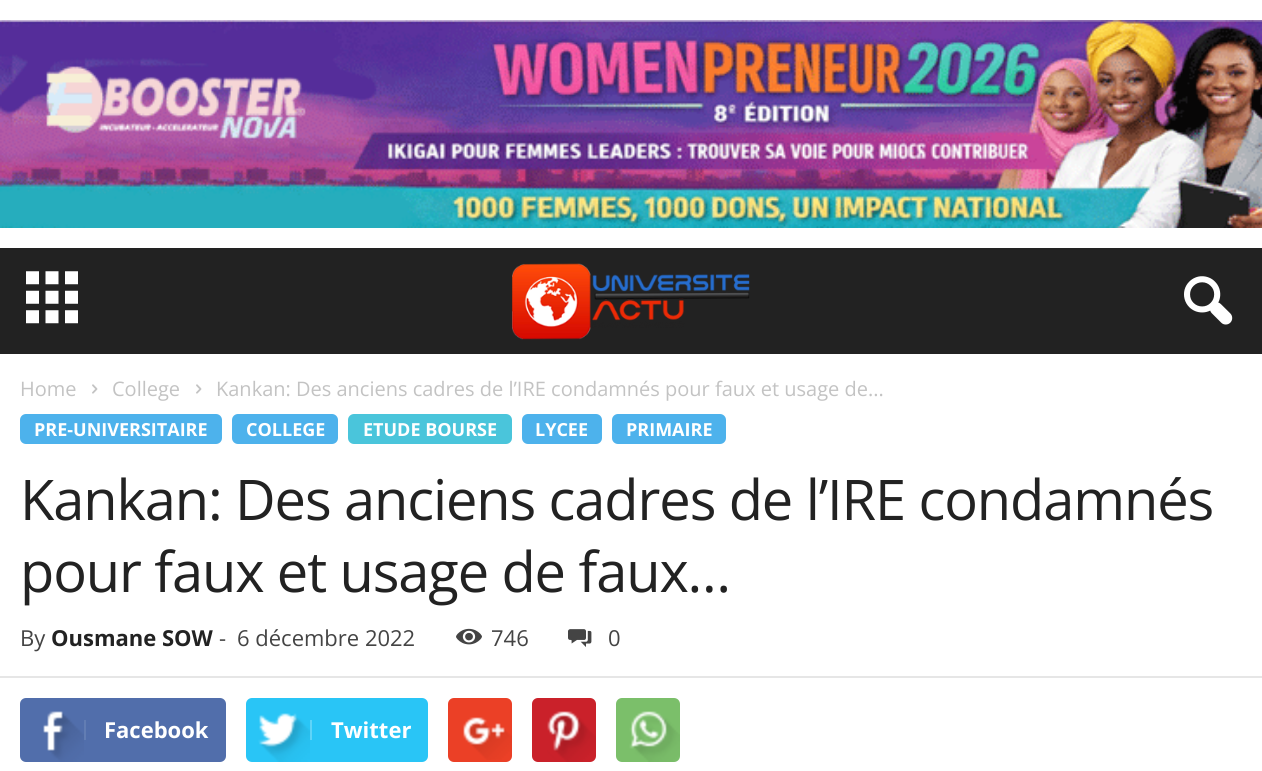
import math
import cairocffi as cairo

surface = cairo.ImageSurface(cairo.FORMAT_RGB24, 1262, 771)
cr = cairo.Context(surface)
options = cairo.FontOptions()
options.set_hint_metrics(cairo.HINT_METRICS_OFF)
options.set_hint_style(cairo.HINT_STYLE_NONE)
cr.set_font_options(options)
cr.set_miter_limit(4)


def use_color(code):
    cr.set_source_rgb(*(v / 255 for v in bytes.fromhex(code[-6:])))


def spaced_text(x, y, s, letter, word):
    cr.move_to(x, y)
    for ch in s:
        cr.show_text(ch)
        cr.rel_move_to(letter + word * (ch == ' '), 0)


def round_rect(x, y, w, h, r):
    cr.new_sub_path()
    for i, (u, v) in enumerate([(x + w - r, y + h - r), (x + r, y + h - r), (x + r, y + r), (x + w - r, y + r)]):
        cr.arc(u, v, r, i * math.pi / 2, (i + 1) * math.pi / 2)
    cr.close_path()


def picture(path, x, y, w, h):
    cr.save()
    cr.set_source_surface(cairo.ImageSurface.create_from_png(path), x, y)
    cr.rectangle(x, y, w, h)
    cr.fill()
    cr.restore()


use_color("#ffffff")
cr.paint()
picture("img1.png", 0, 20, 1262, 208)
use_color("#222222")
cr.rectangle(0, 248, 1262, 106)
cr.fill()
picture("img2.png", 26, 271, 52, 53)
picture("img3.png", 512, 263, 238, 77)
picture("img4.png", 1184, 276, 49, 49)
cr.select_font_face("Open Sans")
cr.set_font_size(20)
use_color("#c3c3c3")
cr.move_to(20, 396)
cr.show_text("Home")
picture("img5.png", 92, 384, 6, 10)
cr.move_to(112, 396)
cr.show_text("College")
picture("img5.png", 196, 384, 6, 10)
cr.move_to(216, 396)
cr.show_text("Kankan: Des anciens cadres de l’IRE condamnés pour faux et usage de...")
use_color("#4db2ec")
round_rect(20, 414, 202, 30, 6)
cr.fill()
cr.select_font_face("Open Sans", cairo.FONT_SLANT_NORMAL, cairo.FONT_WEIGHT_BOLD)
cr.set_font_size(18)
use_color("#ffffff")
cr.move_to(34, 436)
cr.show_text("PRE-UNIVERSITAIRE")
use_color("#4db2ec")
round_rect(232, 414, 106, 30, 6)
cr.fill()
use_color("#ffffff")
cr.move_to(246, 436)
cr.show_text("COLLEGE")
use_color("#4ac5db")
round_rect(348, 414, 164, 30, 6)
cr.fill()
use_color("#ffffff")
cr.move_to(363, 436)
cr.show_text("ETUDE BOURSE")
use_color("#4db2ec")
round_rect(522, 414, 80, 30, 6)
cr.fill()
use_color("#ffffff")
cr.move_to(535, 436)
cr.show_text("LYCEE")
use_color("#4db2ec")
round_rect(612, 414, 114, 30, 6)
cr.fill()
use_color("#ffffff")
cr.move_to(626, 436)
cr.show_text("PRIMAIRE")
cr.select_font_face("Open Sans")
cr.set_font_size(56)
use_color("#222222")
spaced_text(20, 520, "Kankan: Des anciens cadres de l’IRE condamnés", -1.1, 0)
spaced_text(20, 592, "pour faux et usage de faux…", -1.1, 0)
cr.set_font_size(22)
use_color("#444444")
cr.move_to(20, 646)
cr.show_text("By")
cr.select_font_face("Open Sans", cairo.FONT_SLANT_NORMAL, cairo.FONT_WEIGHT_BOLD)
use_color("#222222")
cr.move_to(51, 646)
cr.show_text("Ousmane SOW")
cr.select_font_face("Open Sans")
use_color("#444444")
cr.move_to(219, 646)
cr.show_text("-")
cr.move_to(237, 646)
cr.show_text("6 décembre 2022")
picture("img6.png", 456, 628, 26, 17)
cr.move_to(491, 646)
cr.show_text("746")
picture("img7.png", 568, 629, 24, 18)
cr.move_to(608, 646)
cr.show_text("0")
use_color("#e6e6e6")
cr.rectangle(0, 676, 1262, 2)
cr.fill()
use_color("#516eab")
round_rect(20, 698, 206, 64, 6)
cr.fill()
picture("img8.png", 43, 711, 41, 51)
use_color("#627db3")
cr.rectangle(84, 720, 2, 20)
cr.fill()
cr.select_font_face("Open Sans", cairo.FONT_SLANT_NORMAL, cairo.FONT_WEIGHT_BOLD)
use_color("#ffffff")
cr.move_to(104, 738)
cr.show_text("Facebook")
use_color("#29c5f6")
round_rect(246, 698, 182, 64, 6)
cr.fill()
picture("img9.png", 258, 713, 52, 49)
use_color("#5fd4f8")
cr.rectangle(310, 720, 2, 20)
cr.fill()
use_color("#ffffff")
cr.move_to(331, 738)
cr.show_text("Twitter")
use_color("#eb4026")
round_rect(448, 698, 64, 64, 6)
cr.fill()
picture("img10.png", 463, 717, 49, 43)
use_color("#ca212a")
round_rect(532, 698, 64, 64, 6)
cr.fill()
picture("img11.png", 547, 711, 49, 51)
use_color("#7bbf6a")
round_rect(616, 698, 64, 64, 6)
cr.fill()
picture("img12.png", 629, 711, 51, 51)
surface.write_to_png("result.png")
